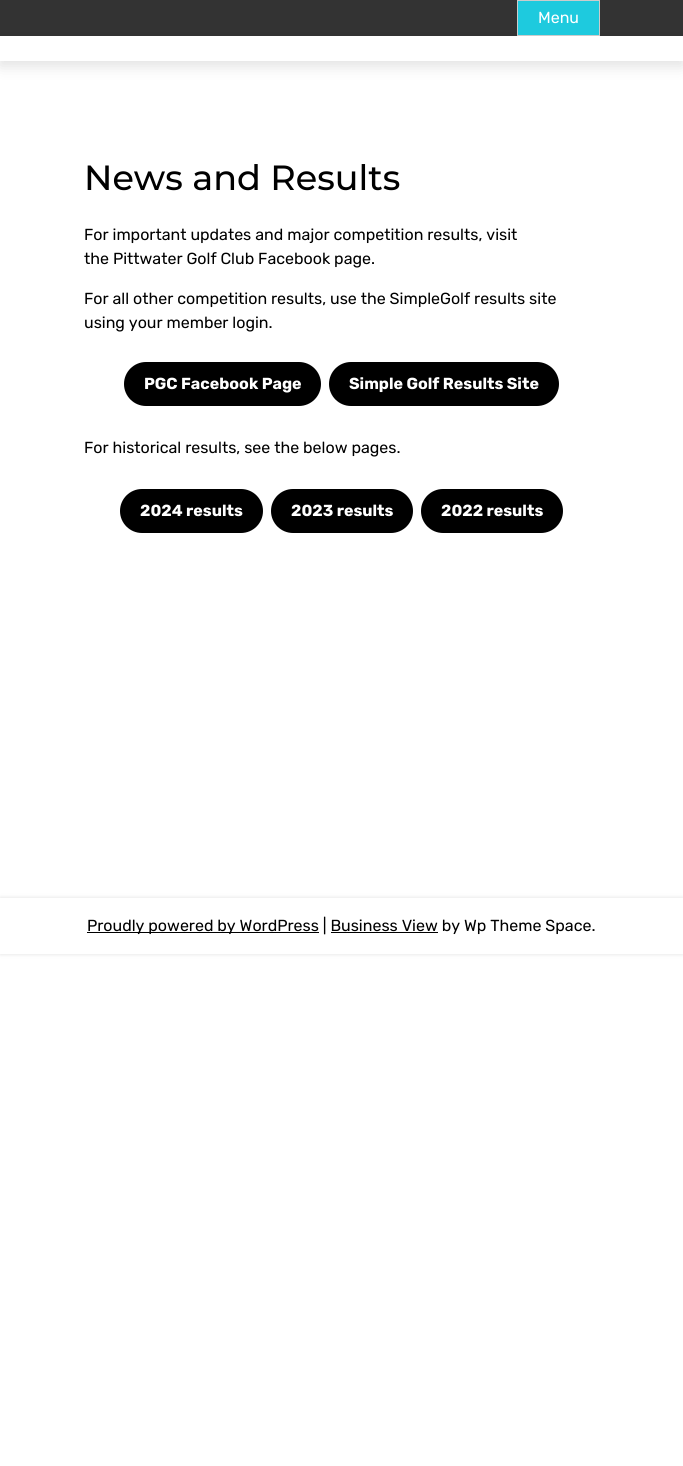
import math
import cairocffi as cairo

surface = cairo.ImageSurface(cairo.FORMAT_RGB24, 683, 1466)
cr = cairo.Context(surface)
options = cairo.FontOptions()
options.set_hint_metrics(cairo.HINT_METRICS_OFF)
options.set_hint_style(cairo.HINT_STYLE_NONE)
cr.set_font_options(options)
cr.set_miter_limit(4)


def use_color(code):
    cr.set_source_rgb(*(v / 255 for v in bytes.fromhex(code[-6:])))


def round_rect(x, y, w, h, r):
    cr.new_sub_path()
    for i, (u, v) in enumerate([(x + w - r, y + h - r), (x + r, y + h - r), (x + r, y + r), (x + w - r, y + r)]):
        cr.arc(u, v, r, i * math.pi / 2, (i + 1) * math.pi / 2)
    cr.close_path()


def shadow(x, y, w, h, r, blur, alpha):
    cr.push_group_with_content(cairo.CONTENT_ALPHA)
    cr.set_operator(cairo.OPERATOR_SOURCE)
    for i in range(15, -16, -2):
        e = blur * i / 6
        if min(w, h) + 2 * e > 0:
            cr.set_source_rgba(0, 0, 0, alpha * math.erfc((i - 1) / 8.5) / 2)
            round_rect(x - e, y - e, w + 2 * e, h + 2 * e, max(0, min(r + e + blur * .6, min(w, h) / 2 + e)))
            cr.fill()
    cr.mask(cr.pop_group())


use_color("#ffffff")
cr.paint()
use_color("#333333")
cr.rectangle(0, 0, 683, 36)
cr.fill()
cr.save()
cr.set_fill_rule(cairo.FILL_RULE_EVEN_ODD)
cr.new_path()
cr.move_to(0, 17)
cr.line_to(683, 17)
cr.line_to(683, 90)
cr.line_to(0, 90)
cr.close_path()
cr.move_to(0, 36)
cr.line_to(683, 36)
cr.line_to(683, 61)
cr.line_to(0, 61)
cr.close_path()
cr.clip()
use_color("#000000")
shadow(0, 41, 683, 25, 0, 7.5, 0.12)
cr.restore()
use_color("#1ecade")
cr.rectangle(517.5, 0.5, 82, 35)
cr.fill_preserve()
use_color("#cccccc")
cr.set_line_width(1)
cr.stroke()
cr.select_font_face("Rubik")
cr.set_font_size(16)
use_color("#ffffff")
cr.move_to(538, 23)
cr.show_text("Menu")
cr.select_font_face("Montserrat Medium")
cr.set_font_size(35)
use_color("#000000")
cr.move_to(84, 190)
cr.show_text("News and Results")
cr.select_font_face("Rubik")
cr.set_font_size(16)
cr.move_to(84, 240)
cr.show_text("For important updates and major competition results, visit")
cr.move_to(84, 264)
cr.show_text("the Pittwater Golf Club Facebook page.")
cr.move_to(84, 304)
cr.show_text("For all other competition results, use the SimpleGolf results site")
cr.move_to(84, 328)
cr.show_text("using your member login.")
round_rect(124, 362, 197, 44, 22)
cr.fill()
cr.select_font_face("Rubik", cairo.FONT_SLANT_NORMAL, cairo.FONT_WEIGHT_BOLD)
use_color("#ffffff")
cr.move_to(144, 389)
cr.show_text("PGC Facebook Page")
use_color("#000000")
round_rect(329, 362, 230, 44, 22)
cr.fill()
use_color("#ffffff")
cr.move_to(349, 389)
cr.show_text("Simple Golf Results Site")
cr.select_font_face("Rubik")
use_color("#000000")
cr.move_to(84, 453)
cr.show_text("For historical results, see the below pages.")
round_rect(120, 489, 143, 44, 22)
cr.fill()
cr.select_font_face("Rubik", cairo.FONT_SLANT_NORMAL, cairo.FONT_WEIGHT_BOLD)
use_color("#ffffff")
cr.move_to(140, 516)
cr.show_text("2024 results")
use_color("#000000")
round_rect(271, 489, 142, 44, 22)
cr.fill()
use_color("#ffffff")
cr.move_to(291, 516)
cr.show_text("2023 results")
use_color("#000000")
round_rect(421, 489, 142, 44, 22)
cr.fill()
use_color("#ffffff")
cr.move_to(441, 516)
cr.show_text("2022 results")
cr.save()
cr.set_fill_rule(cairo.FILL_RULE_EVEN_ODD)
cr.new_path()
cr.move_to(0, 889)
cr.line_to(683, 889)
cr.line_to(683, 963)
cr.line_to(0, 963)
cr.close_path()
cr.move_to(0, 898)
cr.line_to(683, 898)
cr.line_to(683, 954)
cr.line_to(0, 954)
cr.close_path()
cr.clip()
use_color("#000000")
shadow(0, 898, 683, 56, 0, 2.5, 0.12)
cr.restore()
use_color("#000000")
cr.rectangle(87, 932, 232, 1)
cr.fill()
cr.select_font_face("Rubik")
cr.move_to(87, 931)
cr.show_text("Proudly powered by WordPress | Business View by Wp Theme Space.")
cr.rectangle(331, 932, 107, 1)
cr.fill()
surface.write_to_png("result.png")
